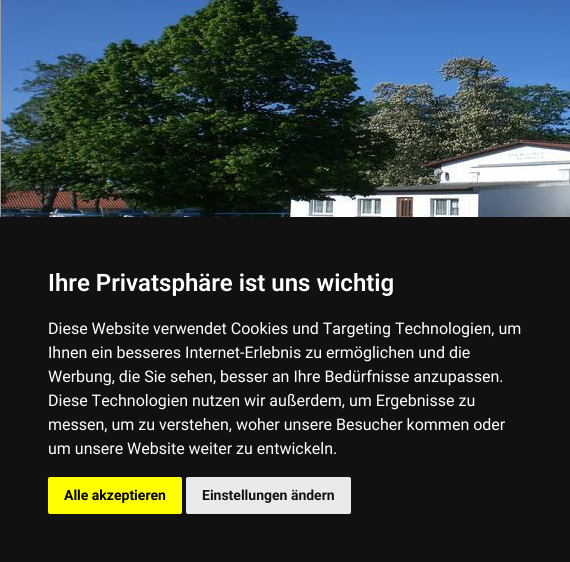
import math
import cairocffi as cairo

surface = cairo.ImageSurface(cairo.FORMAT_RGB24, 570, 562)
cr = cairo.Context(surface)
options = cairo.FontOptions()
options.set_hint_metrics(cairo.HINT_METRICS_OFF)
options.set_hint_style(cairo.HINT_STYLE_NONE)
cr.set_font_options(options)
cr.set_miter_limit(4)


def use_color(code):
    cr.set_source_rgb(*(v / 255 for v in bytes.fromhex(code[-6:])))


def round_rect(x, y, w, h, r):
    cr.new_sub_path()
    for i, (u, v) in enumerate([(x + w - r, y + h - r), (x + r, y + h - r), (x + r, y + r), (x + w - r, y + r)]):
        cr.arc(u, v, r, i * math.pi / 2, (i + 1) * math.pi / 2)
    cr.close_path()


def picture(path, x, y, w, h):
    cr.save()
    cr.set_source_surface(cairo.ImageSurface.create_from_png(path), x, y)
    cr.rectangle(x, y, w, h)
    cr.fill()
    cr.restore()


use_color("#ffffff")
cr.paint()
cr.rectangle(0.5, -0.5, 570, 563)
use_color("#9c9c9c")
cr.set_line_width(1)
cr.stroke()
picture("img1.png", 1, 0, 569, 217)
use_color("#111111")
cr.rectangle(0, 217, 570, 345)
cr.fill()
cr.select_font_face("Roboto SemiBold")
cr.set_font_size(24)
use_color("#ffffff")
cr.move_to(48, 291)
cr.show_text("Ihre Privatsphäre ist uns wichtig")
cr.select_font_face("Roboto")
cr.set_font_size(16)
cr.move_to(48, 334)
cr.show_text("Diese Website verwendet Cookies und Targeting Technologien, um")
cr.move_to(48, 358)
cr.show_text("Ihnen ein besseres Internet-Erlebnis zu ermöglichen und die")
cr.move_to(48, 382)
cr.show_text("Werbung, die Sie sehen, besser an Ihre Bedürfnisse anzupassen.")
cr.move_to(48, 406)
cr.show_text("Diese Technologien nutzen wir außerdem, um Ergebnisse zu")
cr.move_to(48, 430)
cr.show_text("messen, um zu verstehen, woher unsere Besucher kommen oder")
cr.move_to(48, 454)
cr.show_text("um unsere Website weiter zu entwickeln.")
use_color("#ffff00")
round_rect(48, 477, 134, 37, 2)
cr.fill()
cr.select_font_face("Roboto", cairo.FONT_SLANT_NORMAL, cairo.FONT_WEIGHT_BOLD)
cr.set_font_size(14)
use_color("#000000")
cr.move_to(64, 500)
cr.show_text("Alle akzeptieren")
use_color("#eaeaea")
round_rect(186, 477, 165, 37, 2)
cr.fill()
use_color("#111111")
cr.move_to(202, 500)
cr.show_text("Einstellungen ändern")
surface.write_to_png("result.png")
